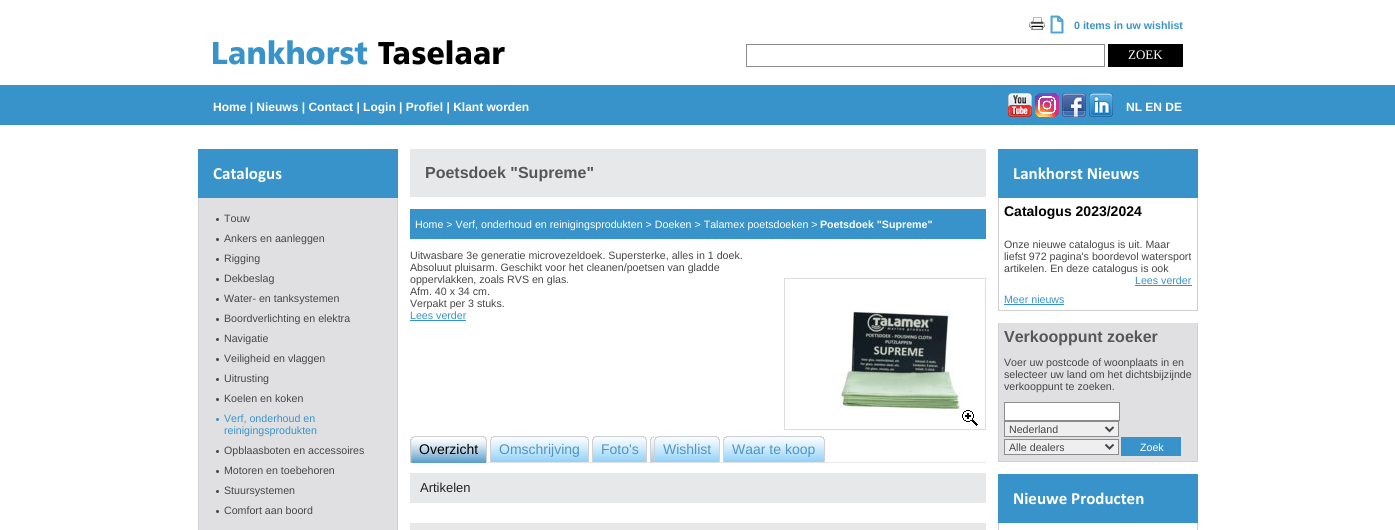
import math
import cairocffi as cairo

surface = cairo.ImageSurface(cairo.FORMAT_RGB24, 1395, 530)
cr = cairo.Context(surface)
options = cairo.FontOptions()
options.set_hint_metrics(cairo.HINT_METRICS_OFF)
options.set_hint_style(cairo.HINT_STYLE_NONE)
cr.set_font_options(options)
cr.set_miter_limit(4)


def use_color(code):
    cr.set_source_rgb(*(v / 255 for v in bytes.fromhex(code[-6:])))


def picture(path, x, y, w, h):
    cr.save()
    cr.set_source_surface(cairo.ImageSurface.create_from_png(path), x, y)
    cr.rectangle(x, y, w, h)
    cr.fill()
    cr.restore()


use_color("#ffffff")
cr.paint()
picture("img1.png", 213, 40, 292, 25)
picture("img2.png", 1029, 17, 16, 13)
picture("img3.png", 1050, 15, 14, 19)
cr.select_font_face("Liberation Sans", cairo.FONT_SLANT_NORMAL, cairo.FONT_WEIGHT_BOLD)
cr.set_font_size(10.65)
use_color("#3893ca")
cr.move_to(1074, 29)
cr.show_text("0 items in uw wishlist")
cr.rectangle(746.5, 44.5, 358, 22)
use_color("#8c8c8e")
cr.set_line_width(1)
cr.stroke()
use_color("#000000")
cr.rectangle(1108, 44, 75, 23)
cr.fill()
cr.select_font_face("Liberation Serif")
cr.set_font_size(13)
use_color("#ffffff")
cr.move_to(1128, 59)
cr.show_text("ZOEK")
use_color("#3893ca")
cr.rectangle(0, 85, 1395, 40)
cr.fill()
cr.select_font_face("Liberation Sans", cairo.FONT_SLANT_NORMAL, cairo.FONT_WEIGHT_BOLD)
cr.set_font_size(12)
use_color("#ffffff")
cr.move_to(213, 111)
cr.show_text("Home | Nieuws | Contact | Login | Profiel | Klant worden")
picture("img4.png", 1008, 93, 24, 24)
picture("img5.png", 1035, 93, 24, 24)
picture("img6.png", 1062, 93, 24, 24)
picture("img7.png", 1089, 93, 24, 24)
cr.move_to(1126, 111)
cr.show_text("NL EN DE")
use_color("#3893ca")
cr.rectangle(198, 149, 200, 49)
cr.fill()
cr.select_font_face("Calibri", cairo.FONT_SLANT_NORMAL, cairo.FONT_WEIGHT_BOLD)
cr.set_font_size(17)
use_color("#ffffff")
cr.move_to(213, 179)
cr.show_text("Catalogus")
use_color("#e0e0e2")
cr.rectangle(199, 198, 198, 332)
cr.fill()
use_color("#d0d1d3")
cr.rectangle(397, 198, 1, 332)
cr.fill()
cr.rectangle(198, 198, 1, 332)
cr.fill()
use_color("#464648")
cr.arc(217.5, 219.5, 1.5, 0, 2 * math.pi)
cr.fill()
cr.select_font_face("Liberation Sans")
cr.set_font_size(10.65)
cr.move_to(224, 222)
cr.show_text("Touw")
cr.new_path()
cr.arc(217.5, 239.5, 1.5, 0, 2 * math.pi)
cr.fill()
cr.move_to(224, 242)
cr.show_text("Ankers en aanleggen")
cr.new_path()
cr.arc(217.5, 259.5, 1.5, 0, 2 * math.pi)
cr.fill()
cr.move_to(224, 262)
cr.show_text("Rigging")
cr.new_path()
cr.arc(217.5, 279.5, 1.5, 0, 2 * math.pi)
cr.fill()
cr.move_to(224, 282)
cr.show_text("Dekbeslag")
cr.new_path()
cr.arc(217.5, 299.5, 1.5, 0, 2 * math.pi)
cr.fill()
cr.move_to(224, 302)
cr.show_text("Water- en tanksystemen")
cr.new_path()
cr.arc(217.5, 319.5, 1.5, 0, 2 * math.pi)
cr.fill()
cr.move_to(224, 322)
cr.show_text("Boordverlichting en elektra")
cr.new_path()
cr.arc(217.5, 339.5, 1.5, 0, 2 * math.pi)
cr.fill()
cr.move_to(224, 342)
cr.show_text("Navigatie")
cr.new_path()
cr.arc(217.5, 359.5, 1.5, 0, 2 * math.pi)
cr.fill()
cr.move_to(224, 362)
cr.show_text("Veiligheid en vlaggen")
cr.new_path()
cr.arc(217.5, 379.5, 1.5, 0, 2 * math.pi)
cr.fill()
cr.move_to(224, 382)
cr.show_text("Uitrusting")
cr.new_path()
cr.arc(217.5, 399.5, 1.5, 0, 2 * math.pi)
cr.fill()
cr.move_to(224, 402)
cr.show_text("Koelen en koken")
use_color("#3893ca")
cr.new_path()
cr.arc(217.5, 419.5, 1.5, 0, 2 * math.pi)
cr.fill()
cr.move_to(224, 422)
cr.show_text("Verf, onderhoud en")
cr.move_to(224, 434)
cr.show_text("reinigingsprodukten")
use_color("#464648")
cr.new_path()
cr.arc(217.5, 451.5, 1.5, 0, 2 * math.pi)
cr.fill()
cr.move_to(224, 454)
cr.show_text("Opblaasboten en accessoires")
cr.new_path()
cr.arc(217.5, 471.5, 1.5, 0, 2 * math.pi)
cr.fill()
cr.move_to(224, 474)
cr.show_text("Motoren en toebehoren")
cr.new_path()
cr.arc(217.5, 491.5, 1.5, 0, 2 * math.pi)
cr.fill()
cr.move_to(224, 494)
cr.show_text("Stuursystemen")
cr.new_path()
cr.arc(217.5, 511.5, 1.5, 0, 2 * math.pi)
cr.fill()
cr.move_to(224, 514)
cr.show_text("Comfort aan boord")
use_color("#e7e8e9")
cr.rectangle(410, 149, 576, 48)
cr.fill()
cr.select_font_face("Liberation Sans", cairo.FONT_SLANT_NORMAL, cairo.FONT_WEIGHT_BOLD)
cr.set_font_size(16)
use_color("#565658")
cr.move_to(425, 178)
cr.show_text("Poetsdoek \"Supreme\"")
use_color("#3893ca")
cr.rectangle(410, 209, 576, 30)
cr.fill()
cr.select_font_face("Liberation Sans")
cr.set_font_size(10.65)
use_color("#ffffff")
cr.move_to(415, 228)
cr.show_text("Home > Verf, onderhoud en reinigingsprodukten > Doeken > Talamex poetsdoeken >")
cr.select_font_face("Liberation Sans", cairo.FONT_SLANT_NORMAL, cairo.FONT_WEIGHT_BOLD)
cr.move_to(820, 228)
cr.show_text("Poetsdoek \"Supreme\"")
cr.select_font_face("Liberation Sans")
use_color("#464648")
cr.move_to(410, 259)
cr.show_text("Uitwasbare 3e generatie microvezeldoek. Supersterke, alles in 1 doek.")
cr.move_to(410, 271)
cr.show_text("Absoluut pluisarm. Geschikt voor het cleanen/poetsen van gladde")
cr.move_to(410, 283)
cr.show_text("oppervlakken, zoals RVS en glas.")
cr.move_to(410, 295)
cr.show_text("Afm. 40 x 34 cm.")
cr.save()
cr.rectangle(410, 249, 360, 60)
cr.clip()
cr.move_to(410, 307)
cr.show_text("Verpakt per 3 stuks.")
cr.restore()
use_color("#3893ca")
cr.move_to(410, 319)
cr.show_text("Lees verder")
cr.rectangle(410, 320, 56, 1)
cr.fill()
cr.rectangle(784.5, 278.5, 201, 151)
use_color("#dcddde")
cr.stroke()
picture("img8.png", 840, 311, 121, 103)
picture("img9.png", 962, 410, 16, 16)
use_color("#e7e8e9")
cr.rectangle(487, 462, 499, 1)
cr.fill()
picture("img10.png", 410, 436, 4, 27)
picture("img11.png", 483, 436, 4, 27)
picture("img12.png", 414, 436, 69, 27)
cr.set_font_size(14)
use_color("#000000")
cr.move_to(419, 454)
cr.show_text("Overzicht")
picture("img13.png", 490, 436, 4, 27)
picture("img14.png", 585, 436, 4, 27)
picture("img15.png", 494, 436, 91, 27)
use_color("#4f96c0")
cr.move_to(499, 454)
cr.show_text("Omschrijving")
picture("img13.png", 592, 436, 4, 27)
picture("img14.png", 643, 436, 4, 27)
picture("img16.png", 596, 436, 47, 27)
cr.move_to(601, 454)
cr.show_text("Foto's")
picture("img13.png", 650, 436, 4, 27)
picture("img13.png", 654, 436, 4, 27)
picture("img14.png", 716, 436, 4, 27)
picture("img17.png", 658, 436, 58, 27)
cr.move_to(663, 454)
cr.show_text("Wishlist")
picture("img13.png", 723, 436, 4, 27)
picture("img14.png", 821, 436, 4, 27)
picture("img18.png", 727, 436, 94, 27)
cr.move_to(732, 454)
cr.show_text("Waar te koop")
use_color("#e7e8e9")
cr.rectangle(410, 473, 576, 30)
cr.fill()
cr.set_font_size(13)
use_color("#222224")
cr.move_to(420, 492)
cr.show_text("Artikelen")
use_color("#e8e8e9")
cr.rectangle(410, 523, 576, 7)
cr.fill()
use_color("#3893ca")
cr.rectangle(998, 149, 200, 49)
cr.fill()
cr.select_font_face("Calibri", cairo.FONT_SLANT_NORMAL, cairo.FONT_WEIGHT_BOLD)
cr.set_font_size(17)
use_color("#ffffff")
cr.move_to(1013, 179)
cr.show_text("Lankhorst Nieuws")
use_color("#d0d1d3")
cr.rectangle(1197, 198, 1, 113)
cr.fill()
cr.rectangle(998, 310, 200, 1)
cr.fill()
cr.rectangle(998, 198, 1, 113)
cr.fill()
cr.select_font_face("Liberation Sans", cairo.FONT_SLANT_NORMAL, cairo.FONT_WEIGHT_BOLD)
cr.set_font_size(14)
use_color("#000000")
cr.move_to(1004, 216)
cr.show_text("Catalogus 2023/2024")
cr.select_font_face("Liberation Sans")
cr.set_font_size(10.65)
use_color("#464648")
cr.move_to(1004, 248)
cr.show_text("Onze nieuwe catalogus is uit. Maar")
cr.move_to(1004, 260)
cr.show_text("liefst 972 pagina's boordevol watersport")
cr.move_to(1004, 272)
cr.show_text("artikelen. En deze catalogus is ook")
use_color("#3893ca")
cr.move_to(1135, 284)
cr.show_text("Lees verder")
cr.rectangle(1135, 285, 57, 1)
cr.fill()
cr.move_to(1004, 303)
cr.show_text("Meer nieuws")
cr.rectangle(1004, 304, 60, 1)
cr.fill()
use_color("#e0e0e2")
cr.rectangle(999, 323, 198, 138)
cr.fill()
use_color("#d0d1d3")
cr.rectangle(1197, 323, 1, 139)
cr.fill()
cr.rectangle(998, 461, 200, 1)
cr.fill()
cr.rectangle(998, 323, 1, 139)
cr.fill()
cr.select_font_face("Liberation Sans", cairo.FONT_SLANT_NORMAL, cairo.FONT_WEIGHT_BOLD)
cr.set_font_size(16)
use_color("#565658")
cr.move_to(1004, 342)
cr.show_text("Verkooppunt zoeker")
cr.select_font_face("Liberation Sans")
cr.set_font_size(10.65)
use_color("#464648")
cr.move_to(1004, 366)
cr.show_text("Voer uw postcode of woonplaats in en")
cr.move_to(1004, 378)
cr.show_text("selecteer uw land om het dichtsbijzijnde")
cr.move_to(1004, 390)
cr.show_text("verkooppunt te zoeken.")
use_color("#ffffff")
cr.rectangle(1004.5, 402.5, 115, 18)
cr.fill_preserve()
use_color("#8c8c8e")
cr.stroke()
use_color("#efefef")
cr.rectangle(1004.5, 421.5, 114, 15)
cr.fill_preserve()
use_color("#8c8c8e")
cr.stroke()
cr.new_path()
cr.move_to(1105.5, 427)
cr.line_to(1109.5, 431)
cr.line_to(1113.5, 427)
use_color("#464648")
cr.set_line_width(2)
cr.stroke()
cr.move_to(1009, 433)
cr.show_text("Nederland")
use_color("#efefef")
cr.rectangle(1004.5, 439.5, 114, 15)
cr.fill_preserve()
use_color("#8c8c8e")
cr.set_line_width(1)
cr.stroke()
cr.new_path()
cr.move_to(1105.5, 444.5)
cr.line_to(1109.5, 448.5)
cr.line_to(1113.5, 444.5)
use_color("#464648")
cr.set_line_width(2)
cr.stroke()
cr.move_to(1009, 451)
cr.show_text("Alle dealers")
use_color("#3893ca")
cr.rectangle(1121, 437, 60, 19)
cr.fill()
use_color("#ffffff")
cr.move_to(1140, 451)
cr.show_text("Zoek")
use_color("#3893ca")
cr.rectangle(998, 474, 200, 49)
cr.fill()
cr.select_font_face("Calibri", cairo.FONT_SLANT_NORMAL, cairo.FONT_WEIGHT_BOLD)
cr.set_font_size(17)
use_color("#ffffff")
cr.move_to(1013, 504)
cr.show_text("Nieuwe Producten")
use_color("#d0d1d3")
cr.rectangle(1197, 523, 1, 7)
cr.fill()
cr.rectangle(998, 523, 1, 7)
cr.fill()
surface.write_to_png("result.png")
